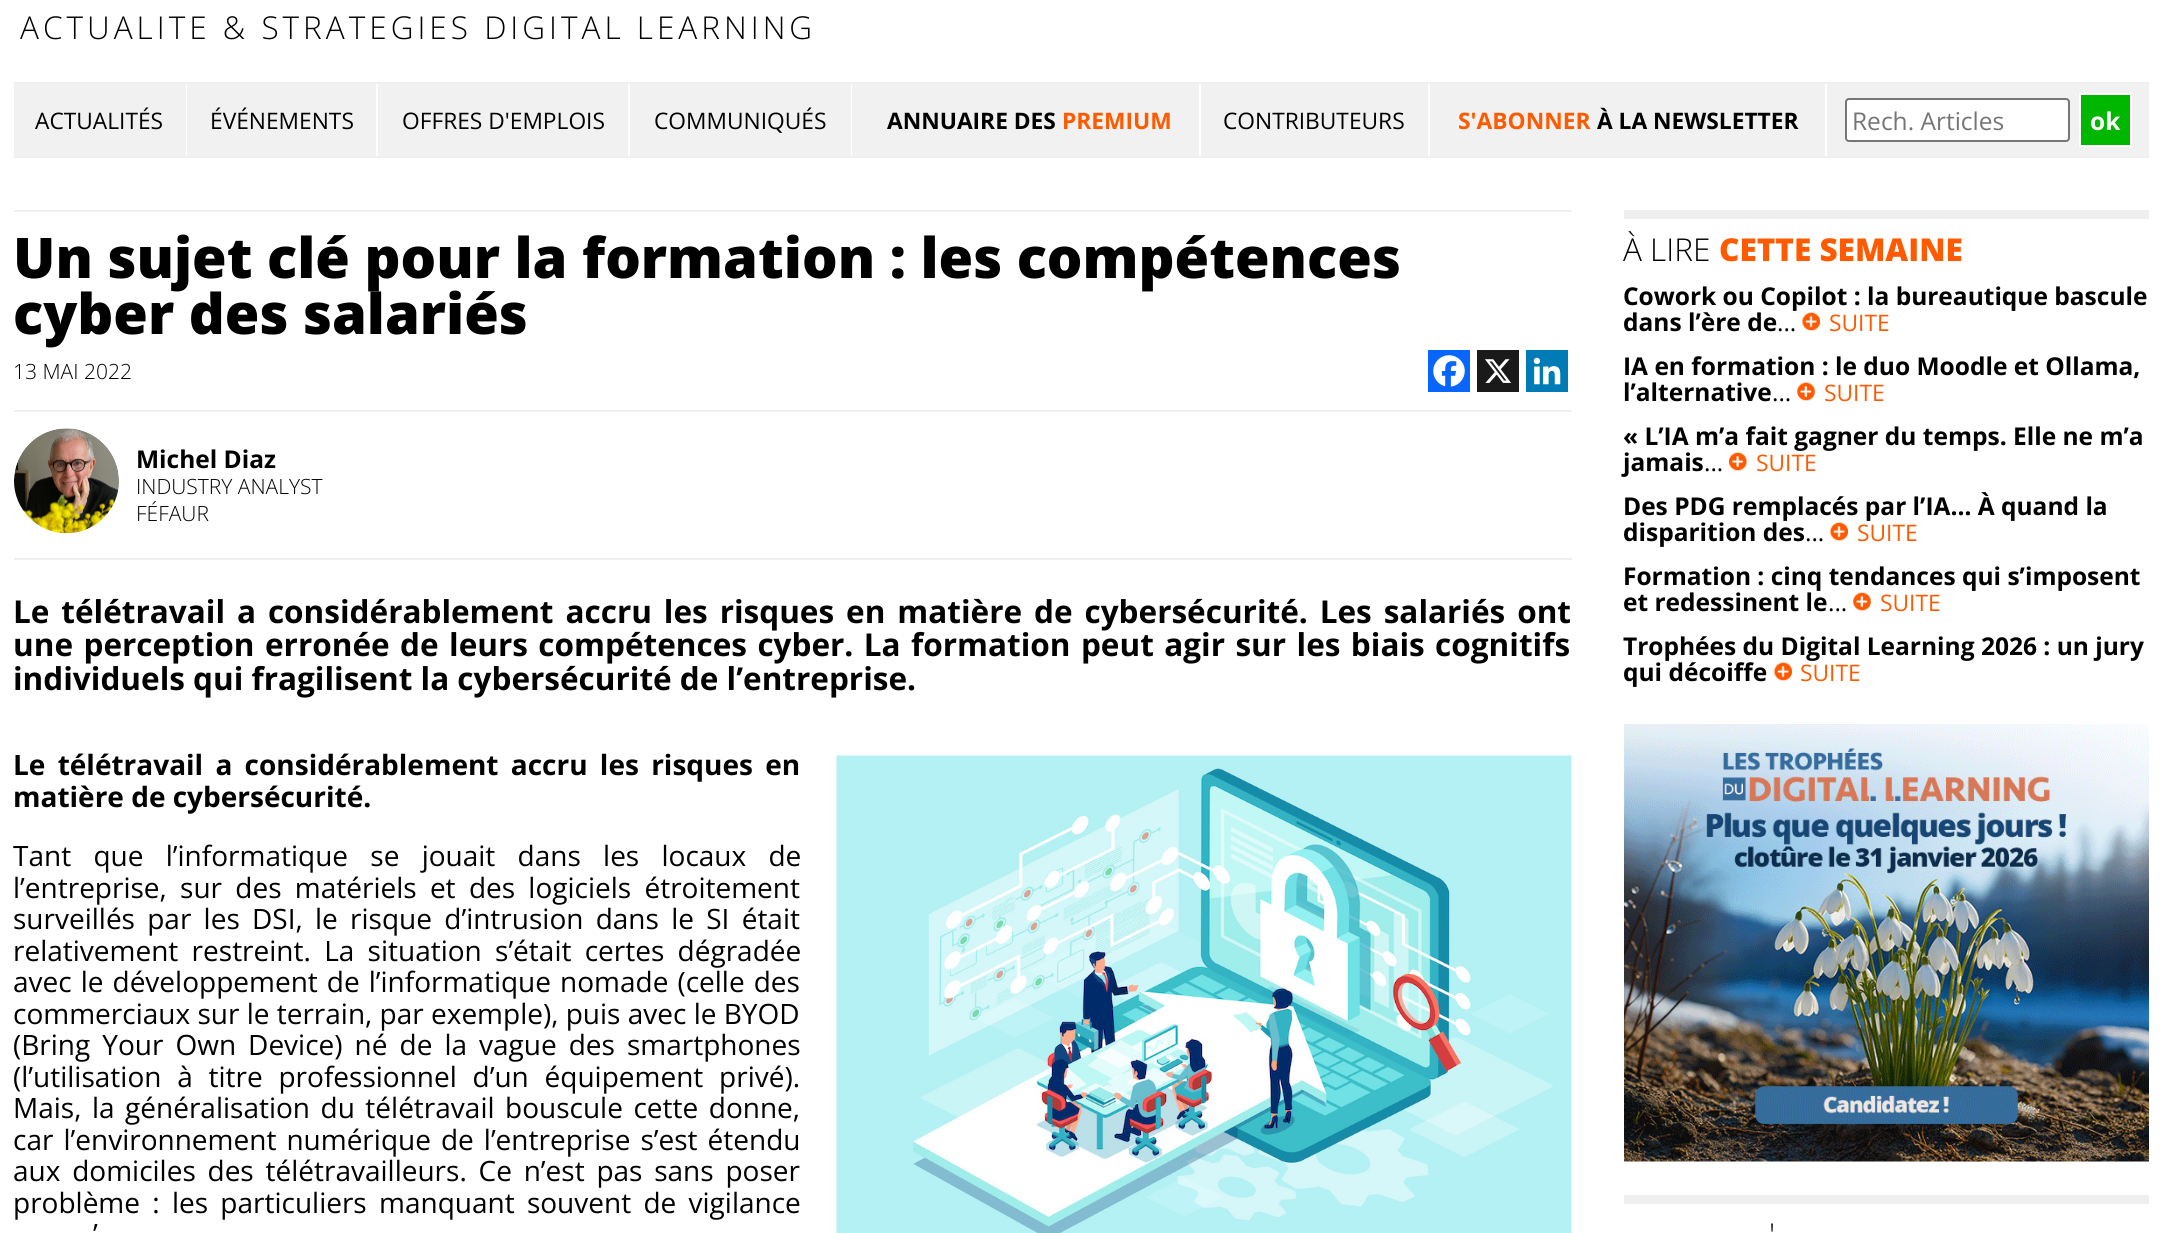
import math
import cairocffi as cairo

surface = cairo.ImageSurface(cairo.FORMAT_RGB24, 2160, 1233)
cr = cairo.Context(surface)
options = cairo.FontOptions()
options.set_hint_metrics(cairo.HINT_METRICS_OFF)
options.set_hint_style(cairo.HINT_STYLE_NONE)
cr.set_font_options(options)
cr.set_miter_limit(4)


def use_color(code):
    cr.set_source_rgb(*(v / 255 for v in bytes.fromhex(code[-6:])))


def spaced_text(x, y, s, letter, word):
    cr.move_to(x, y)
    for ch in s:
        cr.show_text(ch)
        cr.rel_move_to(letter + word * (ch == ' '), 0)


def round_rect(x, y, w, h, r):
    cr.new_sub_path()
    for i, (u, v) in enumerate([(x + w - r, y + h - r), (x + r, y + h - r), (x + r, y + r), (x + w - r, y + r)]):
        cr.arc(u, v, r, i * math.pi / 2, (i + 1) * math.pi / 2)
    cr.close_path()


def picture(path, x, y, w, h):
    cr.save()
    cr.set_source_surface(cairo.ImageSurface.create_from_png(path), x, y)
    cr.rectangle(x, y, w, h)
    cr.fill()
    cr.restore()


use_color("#ffffff")
cr.paint()
cr.select_font_face("Open Sans Light")
cr.set_font_size(31.5)
use_color("#000000")
spaced_text(20, 39, "ACTUALITE & STRATEGIES DIGITAL LEARNING", 4, 0)
use_color("#efefef")
cr.rectangle(14, 82, 2135, 2)
cr.fill()
cr.rectangle(14, 156, 2135, 2)
cr.fill()
use_color("#f1f1f1")
cr.rectangle(14, 84, 172, 72)
cr.fill()
cr.select_font_face("Open Sans")
cr.set_font_size(22.75)
use_color("#000000")
cr.move_to(35, 129)
cr.show_text("ACTUALITÉS")
use_color("#f1f1f1")
cr.rectangle(187, 84, 189, 72)
cr.fill()
use_color("#000000")
cr.move_to(210, 129)
cr.show_text("ÉVÉNEMENTS")
use_color("#f1f1f1")
cr.rectangle(378, 84, 250, 72)
cr.fill()
use_color("#000000")
cr.move_to(402, 129)
cr.show_text("OFFRES D'EMPLOIS")
use_color("#f1f1f1")
cr.rectangle(630, 84, 221, 72)
cr.fill()
use_color("#000000")
cr.move_to(654, 129)
cr.show_text("COMMUNIQUÉS")
use_color("#f1f1f1")
cr.rectangle(852, 84, 347, 72)
cr.fill()
cr.select_font_face("Open Sans", cairo.FONT_SLANT_NORMAL, cairo.FONT_WEIGHT_BOLD)
use_color("#000000")
cr.move_to(887, 129)
cr.show_text("ANNUAIRE DES")
use_color("#ff5a00")
cr.move_to(1062, 129)
cr.show_text("PREMIUM")
use_color("#f1f1f1")
cr.rectangle(1201, 84, 227, 72)
cr.fill()
cr.select_font_face("Open Sans")
use_color("#000000")
cr.move_to(1223, 129)
cr.show_text("CONTRIBUTEURS")
use_color("#f1f1f1")
cr.rectangle(1430, 84, 395, 72)
cr.fill()
cr.select_font_face("Open Sans", cairo.FONT_SLANT_NORMAL, cairo.FONT_WEIGHT_BOLD)
use_color("#ff5a00")
cr.move_to(1458, 129)
cr.show_text("S'ABONNER")
use_color("#000000")
cr.move_to(1597, 129)
cr.show_text("À LA NEWSLETTER")
use_color("#f1f1f1")
cr.rectangle(1827, 84, 322, 72)
cr.fill()
use_color("#ffffff")
round_rect(1846, 99, 223, 42, 3)
cr.fill_preserve()
use_color("#767676")
cr.stroke()
cr.select_font_face("Open Sans")
cr.set_font_size(24.5)
use_color("#757575")
cr.move_to(1852, 130)
cr.show_text("Rech. Articles")
use_color("#00b700")
cr.rectangle(2080, 94, 51, 52)
cr.fill_preserve()
use_color("#ffffff")
cr.stroke()
cr.select_font_face("Open Sans", cairo.FONT_SLANT_NORMAL, cairo.FONT_WEIGHT_BOLD)
cr.move_to(2090, 130)
cr.show_text("ok")
use_color("#efefef")
cr.rectangle(14, 210, 1558, 2)
cr.fill()
cr.select_font_face("Open Sans ExtraBold")
cr.set_font_size(56)
use_color("#000000")
cr.move_to(13, 278)
cr.show_text("Un sujet clé pour la formation : les compétences")
cr.move_to(13, 334)
cr.show_text("cyber des salariés")
cr.select_font_face("Open Sans Light")
cr.set_font_size(21)
cr.move_to(13, 379)
cr.show_text("13 MAI 2022")
use_color("#0866ff")
cr.rectangle(1428, 350, 42, 42)
cr.fill()
picture("img1.png", 1433, 355, 32, 32)
use_color("#1a1a1a")
cr.rectangle(1477, 350, 42, 42)
cr.fill()
picture("img2.png", 1485, 359, 26, 24)
use_color("#007bb5")
cr.rectangle(1526, 350, 42, 42)
cr.fill()
picture("img3.png", 1533, 357, 28, 28)
use_color("#efefef")
cr.rectangle(14, 410, 1558, 2)
cr.fill()
picture("img4.png", 14, 428, 105, 106)
cr.select_font_face("Open Sans", cairo.FONT_SLANT_NORMAL, cairo.FONT_WEIGHT_BOLD)
cr.set_font_size(24.5)
use_color("#000000")
cr.move_to(136, 468)
cr.show_text("Michel Diaz")
cr.select_font_face("Open Sans Light")
cr.set_font_size(21)
cr.move_to(136, 494)
cr.show_text("INDUSTRY ANALYST")
cr.move_to(136, 521)
cr.show_text("FÉFAUR")
use_color("#efefef")
cr.rectangle(14, 558, 1558, 2)
cr.fill()
cr.select_font_face("Open Sans", cairo.FONT_SLANT_NORMAL, cairo.FONT_WEIGHT_BOLD)
cr.set_font_size(31.5)
use_color("#000000")
spaced_text(13, 623, "Le télétravail a considérablement accru les risques en matière de cybersécurité. Les salariés ont", 0, 3.75)
spaced_text(13, 656, "une perception erronée de leurs compétences cyber. La formation peut agir sur les biais cognitifs", 0, 2.25)
cr.move_to(13, 690)
cr.show_text("individuels qui fragilisent la cybersécurité de l’entreprise.")
cr.set_font_size(28)
spaced_text(13, 775, "Le télétravail a considérablement accru les risques en", 0, 5)
cr.move_to(13, 807)
cr.show_text("matière de cybersécurité.")
picture("img5.png", 836, 755, 736, 478)
cr.select_font_face("Open Sans")
spaced_text(13, 866, "Tant que l’informatique se jouait dans les locaux de", 0, 15)
spaced_text(13, 898, "l’entreprise, sur des matériels et des logiciels étroitement", 0, 6)
spaced_text(13, 929, "surveillés par les DSI, le risque d’intrusion dans le SI était", 0, 5)
spaced_text(13, 961, "relativement restreint. La situation s’était certes dégradée", 0, 6)
spaced_text(13, 992, "avec le développement de l’informatique nomade (celle des", 0, 1.75)
cr.move_to(13, 1024)
cr.show_text("commerciaux sur le terrain, par exemple), puis avec le BYOD")
spaced_text(13, 1055, "(Bring Your Own Device) né de la vague des smartphones", 0, 4.75)
spaced_text(13, 1087, "(l’utilisation à titre professionnel d’un équipement privé).", 0, 8.5)
spaced_text(13, 1118, "Mais, la généralisation du télétravail bouscule cette donne,", 0, 3.25)
spaced_text(13, 1150, "car l’environnement numérique de l’entreprise s’est étendu", 0, 2.75)
spaced_text(13, 1181, "aux domiciles des télétravailleurs. Ce n’est pas sans poser", 0, 4.5)
spaced_text(13, 1213, "problème : les particuliers manquant souvent de vigilance", 0, 5)
spaced_text(93, 1244, "’", 0, 2)
use_color("#efefef")
cr.rectangle(1624, 210, 525, 9)
cr.fill()
cr.select_font_face("Open Sans Light")
cr.set_font_size(31.5)
use_color("#000000")
cr.move_to(1623, 261)
cr.show_text("À LIRE")
cr.select_font_face("Open Sans ExtraBold")
use_color("#ff5a00")
cr.move_to(1719, 261)
cr.show_text("CETTE SEMAINE")
cr.select_font_face("Open Sans", cairo.FONT_SLANT_NORMAL, cairo.FONT_WEIGHT_BOLD)
cr.set_font_size(24.5)
use_color("#000000")
cr.move_to(1623, 305)
cr.show_text("Cowork ou Copilot : la bureautique bascule")
cr.move_to(1623, 331)
cr.show_text("dans l’ère de")
cr.select_font_face("Open Sans")
cr.move_to(1777, 331)
cr.show_text("...")
picture("img6.png", 1802, 312, 18, 19)
cr.set_font_size(22.75)
use_color("#ff5a00")
cr.move_to(1829, 331)
cr.show_text("SUITE")
cr.select_font_face("Open Sans", cairo.FONT_SLANT_NORMAL, cairo.FONT_WEIGHT_BOLD)
cr.set_font_size(24.5)
use_color("#000000")
cr.move_to(1623, 375)
cr.show_text("IA en formation : le duo Moodle et Ollama,")
cr.move_to(1623, 401)
cr.show_text("l’alternative")
cr.select_font_face("Open Sans")
cr.move_to(1772, 401)
cr.show_text("...")
picture("img7.png", 1797, 382, 18, 19)
cr.set_font_size(22.75)
use_color("#ff5a00")
cr.move_to(1824, 401)
cr.show_text("SUITE")
cr.select_font_face("Open Sans", cairo.FONT_SLANT_NORMAL, cairo.FONT_WEIGHT_BOLD)
cr.set_font_size(24.5)
use_color("#000000")
cr.move_to(1623, 445)
cr.show_text("« L’IA m’a fait gagner du temps. Elle ne m’a")
cr.move_to(1623, 471)
cr.show_text("jamais")
cr.select_font_face("Open Sans")
cr.move_to(1704, 471)
cr.show_text("...")
picture("img8.png", 1729, 452, 18, 19)
cr.set_font_size(22.75)
use_color("#ff5a00")
cr.move_to(1756, 471)
cr.show_text("SUITE")
cr.select_font_face("Open Sans", cairo.FONT_SLANT_NORMAL, cairo.FONT_WEIGHT_BOLD)
cr.set_font_size(24.5)
use_color("#000000")
cr.move_to(1623, 515)
cr.show_text("Des PDG remplacés par l’IA… À quand la")
cr.move_to(1623, 541)
cr.show_text("disparition des")
cr.select_font_face("Open Sans")
cr.move_to(1805, 541)
cr.show_text("...")
picture("img6.png", 1830, 522, 18, 19)
cr.set_font_size(22.75)
use_color("#ff5a00")
cr.move_to(1857, 541)
cr.show_text("SUITE")
cr.select_font_face("Open Sans", cairo.FONT_SLANT_NORMAL, cairo.FONT_WEIGHT_BOLD)
cr.set_font_size(24.5)
use_color("#000000")
cr.move_to(1623, 585)
cr.show_text("Formation : cinq tendances qui s’imposent")
cr.move_to(1623, 611)
cr.show_text("et redessinent le")
cr.select_font_face("Open Sans")
cr.move_to(1828, 611)
cr.show_text("...")
picture("img7.png", 1853, 592, 18, 19)
cr.set_font_size(22.75)
use_color("#ff5a00")
cr.move_to(1880, 611)
cr.show_text("SUITE")
cr.select_font_face("Open Sans", cairo.FONT_SLANT_NORMAL, cairo.FONT_WEIGHT_BOLD)
cr.set_font_size(24.5)
use_color("#000000")
cr.move_to(1623, 655)
cr.show_text("Trophées du Digital Learning 2026 : un jury")
cr.move_to(1623, 681)
cr.show_text("qui décoiffe")
picture("img9.png", 1774, 662, 18, 19)
cr.select_font_face("Open Sans")
cr.set_font_size(22.75)
use_color("#ff5a00")
cr.move_to(1800, 681)
cr.show_text("SUITE")
picture("img10.png", 1624, 724, 525, 438)
use_color("#efefef")
cr.rectangle(1624, 1195, 525, 9)
cr.fill()
cr.select_font_face("Open Sans Light")
cr.set_font_size(31.5)
use_color("#000000")
cr.move_to(1769, 1246)
cr.show_text("'")
surface.write_to_png("result.png")
